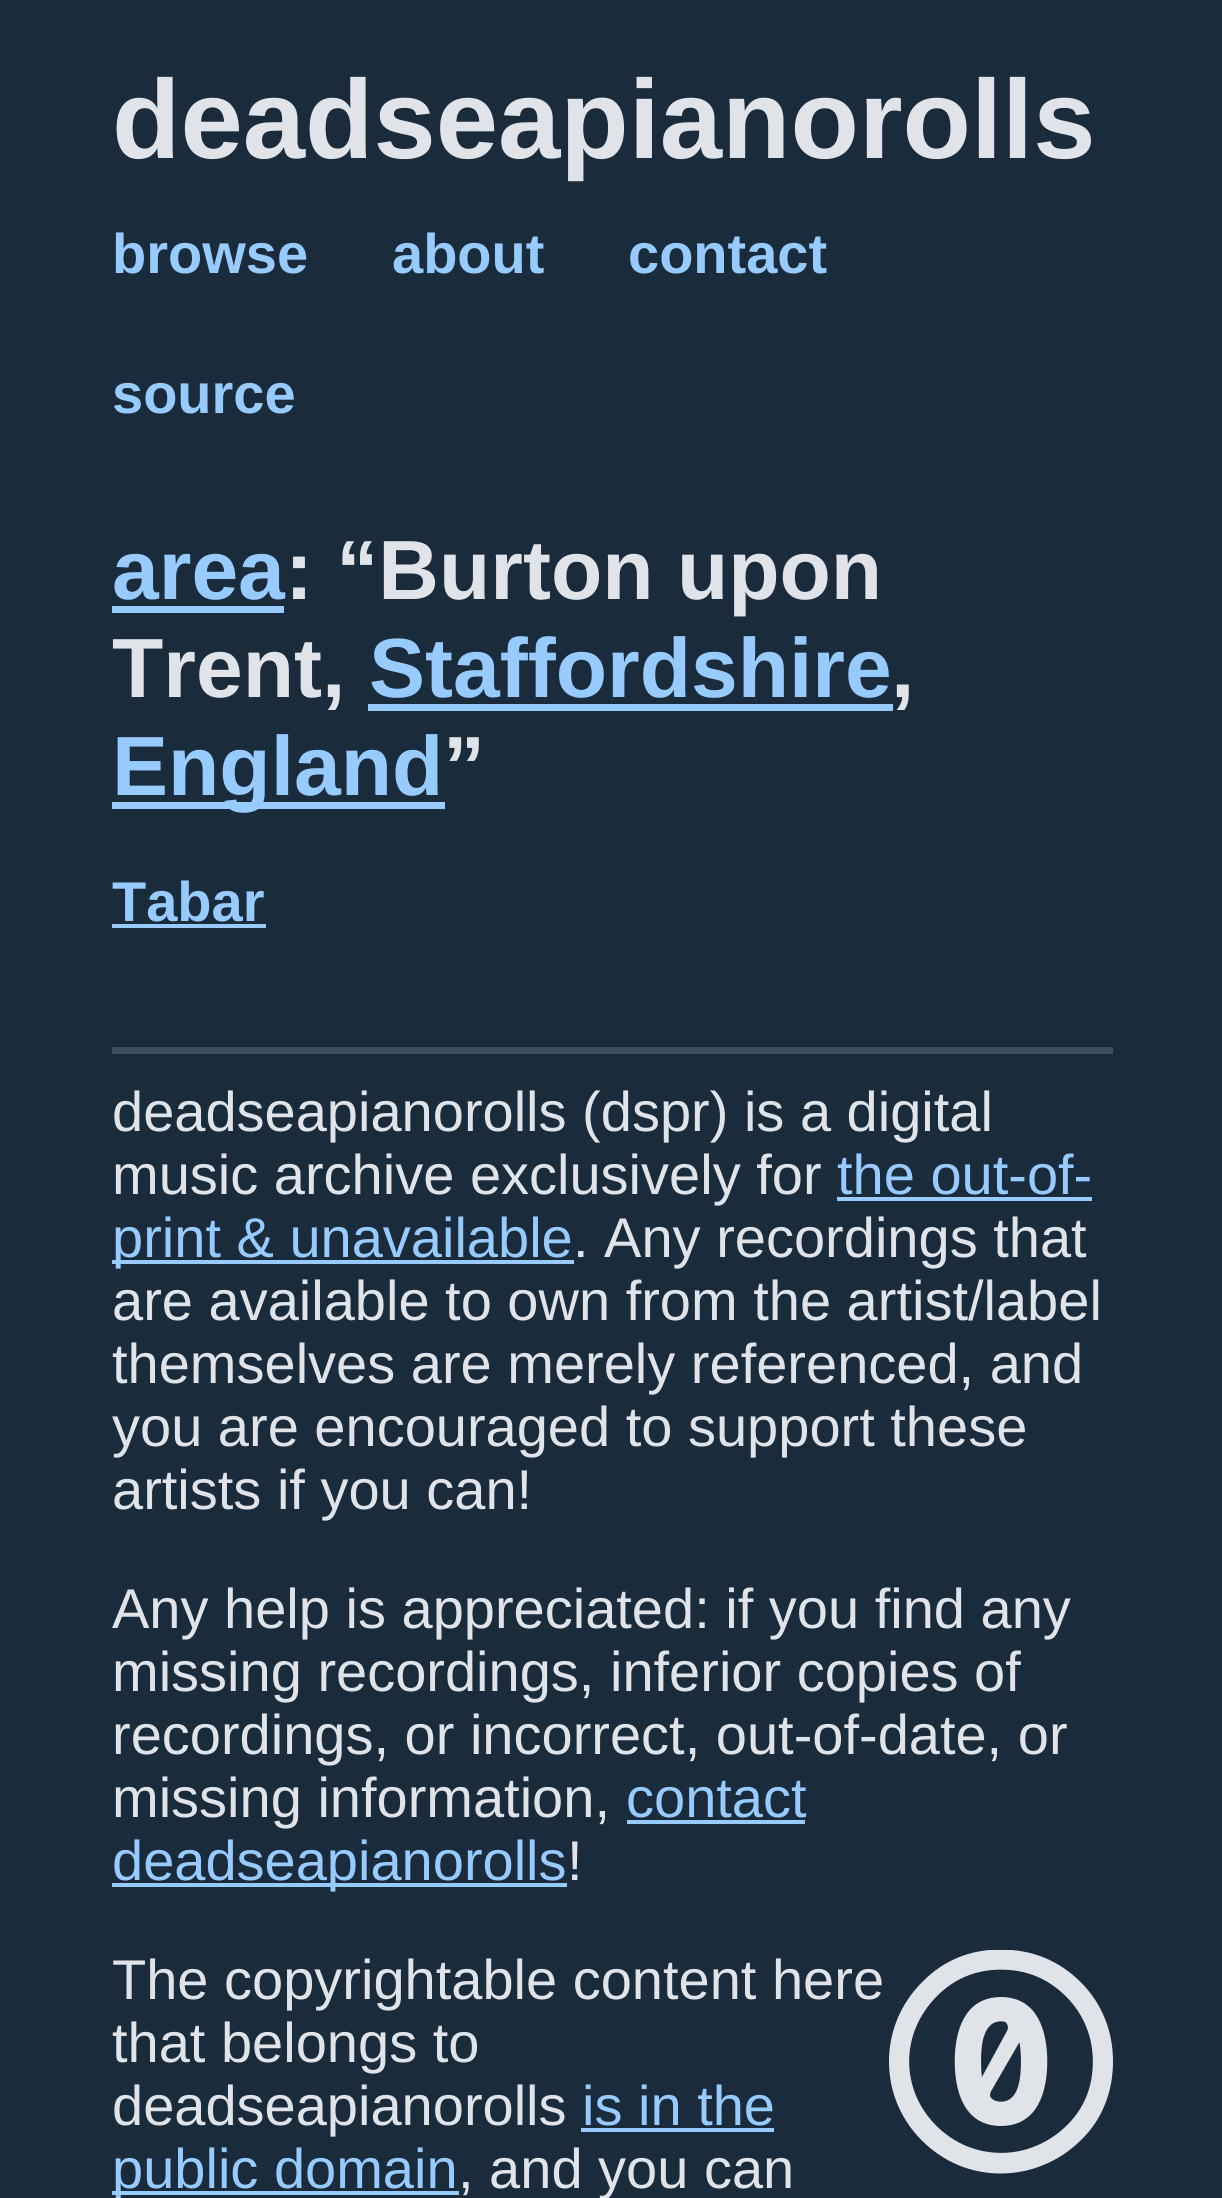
import math
import cairocffi as cairo

surface = cairo.ImageSurface(cairo.FORMAT_RGB24, 1222, 2198)
cr = cairo.Context(surface)
options = cairo.FontOptions()
options.set_hint_metrics(cairo.HINT_METRICS_OFF)
options.set_hint_style(cairo.HINT_STYLE_NONE)
cr.set_font_options(options)
cr.set_miter_limit(4)


def use_color(code):
    cr.set_source_rgb(*(v / 255 for v in bytes.fromhex(code[-6:])))


def picture(path, x, y, w, h):
    cr.save()
    cr.set_source_surface(cairo.ImageSurface.create_from_png(path), x, y)
    cr.rectangle(x, y, w, h)
    cr.fill()
    cr.restore()


use_color("#1a2b3c")
cr.paint()
cr.select_font_face("Liberation Sans", cairo.FONT_SLANT_NORMAL, cairo.FONT_WEIGHT_BOLD)
cr.set_font_size(112)
use_color("#e0e4e8")
cr.move_to(112, 158)
cr.show_text("deadseapianorolls")
cr.set_font_size(56)
use_color("#97cafd")
cr.move_to(112, 273)
cr.show_text("browse")
cr.move_to(392, 273)
cr.show_text("about")
cr.move_to(628, 273)
cr.show_text("contact")
cr.move_to(112, 413)
cr.show_text("source")
cr.set_font_size(84)
cr.move_to(112, 599)
cr.show_text("area")
cr.rectangle(112, 606, 172, 7)
cr.fill()
use_color("#e0e4e8")
cr.move_to(285, 599)
cr.show_text(": “Burton upon")
cr.move_to(112, 697)
cr.show_text("Trent,")
use_color("#97cafd")
cr.move_to(369, 697)
cr.show_text("Staffordshire")
cr.rectangle(368, 704, 525, 7)
cr.fill()
use_color("#e0e4e8")
cr.move_to(891, 697)
cr.show_text(",")
use_color("#97cafd")
cr.rectangle(112, 802, 333, 7)
cr.fill()
cr.move_to(112, 795)
cr.show_text("England")
use_color("#e0e4e8")
cr.move_to(443, 795)
cr.show_text("”")
cr.set_font_size(56)
use_color("#97cafd")
cr.move_to(112, 921)
cr.show_text("Tabar")
cr.rectangle(112, 924, 154, 4)
cr.fill()
use_color("#3c4d5e")
cr.rectangle(112, 1047, 1001, 7)
cr.fill()
cr.select_font_face("Liberation Sans")
use_color("#e0e4e8")
cr.move_to(112, 1131)
cr.show_text("deadseapianorolls (dspr) is a digital")
cr.move_to(112, 1194)
cr.show_text("music archive exclusively for")
use_color("#97cafd")
cr.move_to(837, 1194)
cr.show_text("the out-of-")
cr.rectangle(837, 1197, 255, 4)
cr.fill()
cr.rectangle(112, 1260, 462, 4)
cr.fill()
cr.move_to(112, 1257)
cr.show_text("print & unavailable")
use_color("#e0e4e8")
cr.move_to(573, 1257)
cr.show_text(". Any recordings that")
cr.move_to(112, 1320)
cr.show_text("are available to own from the artist/label")
cr.move_to(112, 1383)
cr.show_text("themselves are merely referenced, and")
cr.move_to(112, 1446)
cr.show_text("you are encouraged to support these")
cr.move_to(112, 1509)
cr.show_text("artists if you can!")
cr.move_to(112, 1628)
cr.show_text("Any help is appreciated: if you find any")
cr.move_to(112, 1691)
cr.show_text("missing recordings, inferior copies of")
cr.move_to(112, 1754)
cr.show_text("recordings, or incorrect, out-of-date, or")
cr.move_to(112, 1817)
cr.show_text("missing information,")
use_color("#97cafd")
cr.move_to(626, 1817)
cr.show_text("contact")
cr.rectangle(627, 1820, 178, 4)
cr.fill()
cr.rectangle(112, 1883, 455, 4)
cr.fill()
cr.move_to(112, 1880)
cr.show_text("deadseapianorolls")
use_color("#e0e4e8")
cr.move_to(567, 1880)
cr.show_text("!")
cr.move_to(112, 1999)
cr.show_text("The copyrightable content here")
picture("img1.png", 889, 1950, 224, 224)
cr.move_to(112, 2062)
cr.show_text("that belongs to")
cr.move_to(112, 2125)
cr.show_text("deadseapianorolls")
use_color("#97cafd")
cr.move_to(582, 2125)
cr.show_text("is in the")
cr.rectangle(581, 2128, 193, 4)
cr.fill()
cr.rectangle(112, 2191, 347, 4)
cr.fill()
cr.move_to(112, 2188)
cr.show_text("public domain")
use_color("#e0e4e8")
cr.move_to(458, 2188)
cr.show_text(", and you can")
surface.write_to_png("result.png")
